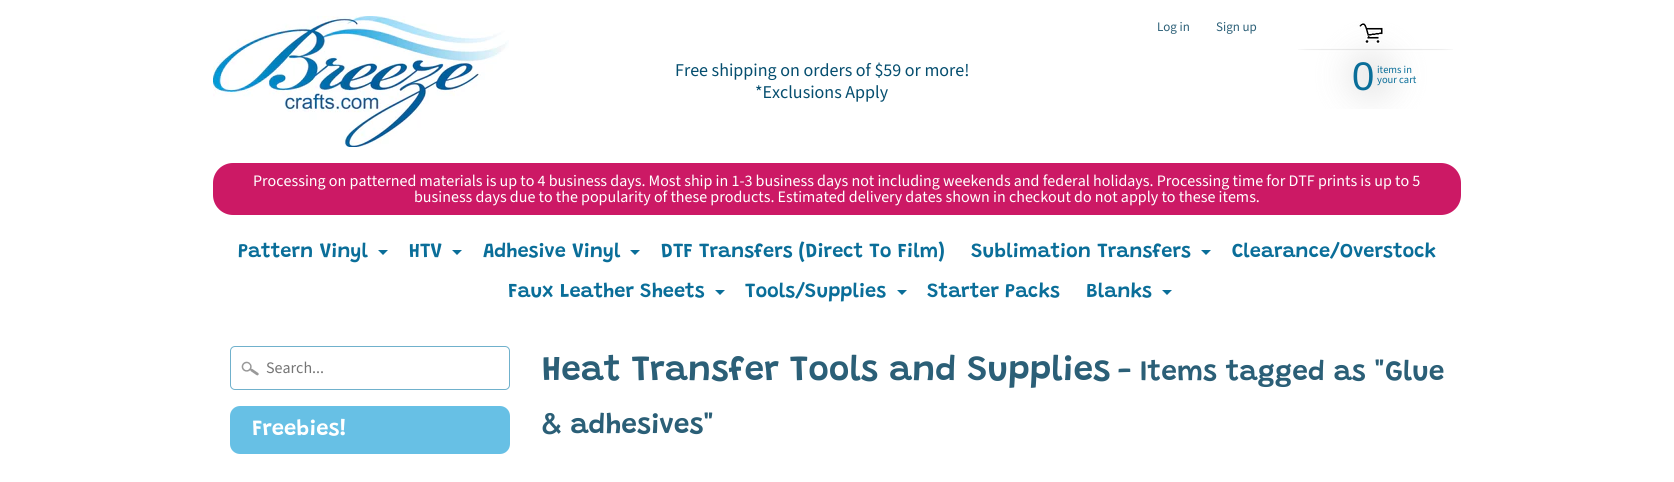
import math
import cairocffi as cairo

surface = cairo.ImageSurface(cairo.FORMAT_RGB24, 1674, 482)
cr = cairo.Context(surface)
options = cairo.FontOptions()
options.set_hint_metrics(cairo.HINT_METRICS_OFF)
options.set_hint_style(cairo.HINT_STYLE_NONE)
cr.set_font_options(options)
cr.set_miter_limit(4)


def use_color(code):
    cr.set_source_rgb(*(v / 255 for v in bytes.fromhex(code[-6:])))


def round_rect(x, y, w, h, r):
    cr.new_sub_path()
    for i, (u, v) in enumerate([(x + w - r, y + h - r), (x + r, y + h - r), (x + r, y + r), (x + w - r, y + r)]):
        cr.arc(u, v, r, i * math.pi / 2, (i + 1) * math.pi / 2)
    cr.close_path()


def picture(path, x, y, w, h):
    cr.save()
    cr.set_source_surface(cairo.ImageSurface.create_from_png(path), x, y)
    cr.rectangle(x, y, w, h)
    cr.fill()
    cr.restore()


use_color("#ffffff")
cr.paint()
cr.select_font_face("Source Sans Pro")
cr.set_font_size(13)
use_color("#2b5f77")
cr.move_to(1157, 31)
cr.show_text("Log in")
cr.move_to(1216, 31)
cr.show_text("Sign up")
picture("img1.png", 213, 16, 296, 131)
cr.set_font_size(18)
use_color("#054e6f")
cr.move_to(675, 76)
cr.show_text("Free shipping on orders of $59 or more!")
cr.move_to(755, 98)
cr.show_text("*Exclusions Apply")
picture("img2.png", 1298, 21, 155, 88)
cr.select_font_face("Liberation Sans")
cr.set_font_size(40)
use_color("#0a6e99")
cr.move_to(1352, 90)
cr.show_text("0")
cr.select_font_face("Source Sans Pro")
cr.set_font_size(10.5)
cr.move_to(1377, 73)
cr.show_text("items in")
cr.move_to(1377, 83)
cr.show_text("your cart")
use_color("#cc1965")
round_rect(213, 163, 1248, 52, 20)
cr.fill()
cr.set_font_size(16)
use_color("#ffffff")
cr.move_to(253, 186)
cr.show_text("Processing on patterned materials is up to 4 business days. Most ship in 1-3 business days not including weekends and federal holidays. Processing time for DTF prints is up to 5")
cr.move_to(414, 202)
cr.show_text("business days due to the popularity of these products. Estimated delivery dates shown in checkout do not apply to these items.")
cr.select_font_face("Grandstander SemiBold")
cr.set_font_size(20)
use_color("#0a6e99")
cr.move_to(238, 257)
cr.show_text("Pattern Vinyl")
cr.new_path()
cr.move_to(378, 250)
cr.line_to(388, 250)
cr.line_to(383, 255)
cr.close_path()
cr.fill()
cr.move_to(409, 257)
cr.show_text("HTV")
cr.new_path()
cr.move_to(452, 250)
cr.line_to(462, 250)
cr.line_to(457, 255)
cr.close_path()
cr.fill()
cr.move_to(483, 257)
cr.show_text("Adhesive Vinyl")
cr.new_path()
cr.move_to(630, 250)
cr.line_to(640, 250)
cr.line_to(635, 255)
cr.close_path()
cr.fill()
cr.move_to(661, 257)
cr.show_text("DTF Transfers (Direct To Film)")
cr.move_to(971, 257)
cr.show_text("Sublimation Transfers")
cr.new_path()
cr.move_to(1201, 250)
cr.line_to(1211, 250)
cr.line_to(1206, 255)
cr.close_path()
cr.fill()
cr.move_to(1232, 257)
cr.show_text("Clearance/Overstock")
cr.move_to(508, 297)
cr.show_text("Faux Leather Sheets")
cr.new_path()
cr.move_to(715, 290)
cr.line_to(725, 290)
cr.line_to(720, 295)
cr.close_path()
cr.fill()
cr.move_to(745, 297)
cr.show_text("Tools/Supplies")
cr.new_path()
cr.move_to(897, 290)
cr.line_to(907, 290)
cr.line_to(902, 295)
cr.close_path()
cr.fill()
cr.move_to(927, 297)
cr.show_text("Starter Packs")
cr.move_to(1086, 297)
cr.show_text("Blanks")
cr.new_path()
cr.move_to(1162, 290)
cr.line_to(1172, 290)
cr.line_to(1167, 295)
cr.close_path()
cr.fill()
picture("img3.png", 241, 361, 18, 15)
round_rect(230.5, 346.5, 279, 43, 4.5)
use_color("#70b1cc")
cr.set_line_width(1)
cr.stroke()
cr.select_font_face("Source Sans Pro")
cr.set_font_size(16)
use_color("#757575")
cr.move_to(266, 373)
cr.show_text("Search...")
use_color("#67c0e5")
round_rect(230, 406, 280, 48, 10)
cr.fill()
cr.select_font_face("Grandstander SemiBold")
cr.set_font_size(22)
use_color("#ffffff")
cr.move_to(252, 435)
cr.show_text("Freebies!")
cr.set_font_size(35.25)
use_color("#2b5f77")
cr.move_to(542, 380)
cr.show_text("Heat Transfer Tools and Supplies")
cr.set_font_size(28.2)
cr.move_to(1118, 380)
cr.show_text("- Items tagged as \"Glue")
cr.move_to(542, 433)
cr.show_text("& adhesives\"")
surface.write_to_png("result.png")
